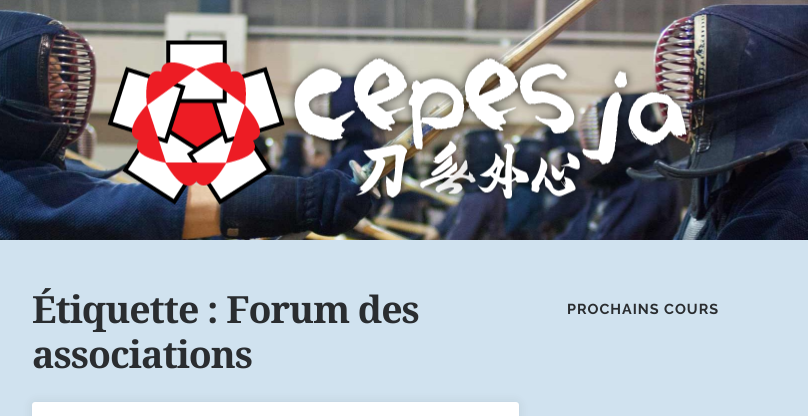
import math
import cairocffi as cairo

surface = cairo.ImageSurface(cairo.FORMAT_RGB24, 808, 416)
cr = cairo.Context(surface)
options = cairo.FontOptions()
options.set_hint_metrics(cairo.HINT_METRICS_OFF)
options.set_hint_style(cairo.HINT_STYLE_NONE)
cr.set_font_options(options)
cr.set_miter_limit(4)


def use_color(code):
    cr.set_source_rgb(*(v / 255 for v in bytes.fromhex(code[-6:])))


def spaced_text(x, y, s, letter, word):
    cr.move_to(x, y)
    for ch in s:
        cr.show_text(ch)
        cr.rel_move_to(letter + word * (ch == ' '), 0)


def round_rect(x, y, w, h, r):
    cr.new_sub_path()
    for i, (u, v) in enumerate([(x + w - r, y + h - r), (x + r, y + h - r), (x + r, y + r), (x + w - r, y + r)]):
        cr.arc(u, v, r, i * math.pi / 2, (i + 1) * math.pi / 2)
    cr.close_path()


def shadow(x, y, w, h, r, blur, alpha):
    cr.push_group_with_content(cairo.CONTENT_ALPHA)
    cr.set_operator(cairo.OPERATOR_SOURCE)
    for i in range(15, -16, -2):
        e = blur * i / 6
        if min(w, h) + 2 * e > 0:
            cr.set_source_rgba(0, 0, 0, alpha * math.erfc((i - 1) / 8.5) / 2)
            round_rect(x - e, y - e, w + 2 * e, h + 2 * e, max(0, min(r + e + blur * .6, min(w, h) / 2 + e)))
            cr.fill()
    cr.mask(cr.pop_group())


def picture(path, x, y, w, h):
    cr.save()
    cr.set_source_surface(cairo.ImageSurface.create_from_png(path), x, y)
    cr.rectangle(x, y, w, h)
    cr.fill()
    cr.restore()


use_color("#d0e2ef")
cr.paint()
picture("img1.png", 0, 0, 808, 240)
picture("img2.png", 107, 40, 586, 165)
cr.select_font_face("Droid Serif", cairo.FONT_SLANT_NORMAL, cairo.FONT_WEIGHT_BOLD)
cr.set_font_size(37.5)
use_color("#2a2d30")
spaced_text(32, 323, "Étiquette : Forum des", -1, 0)
spaced_text(32, 368, "associations", -1, 0)
use_color("#000000")
shadow(32, 402, 487, 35, 3, 6, 0.08)
use_color("#ffffff")
round_rect(32, 402, 487, 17, 3)
cr.fill()
cr.select_font_face("Raleway", cairo.FONT_SLANT_NORMAL, cairo.FONT_WEIGHT_BOLD)
cr.set_font_size(14.4)
use_color("#2a2d30")
spaced_text(567, 314, "PROCHAINS COURS", 1, 0)
surface.write_to_png("result.png")
